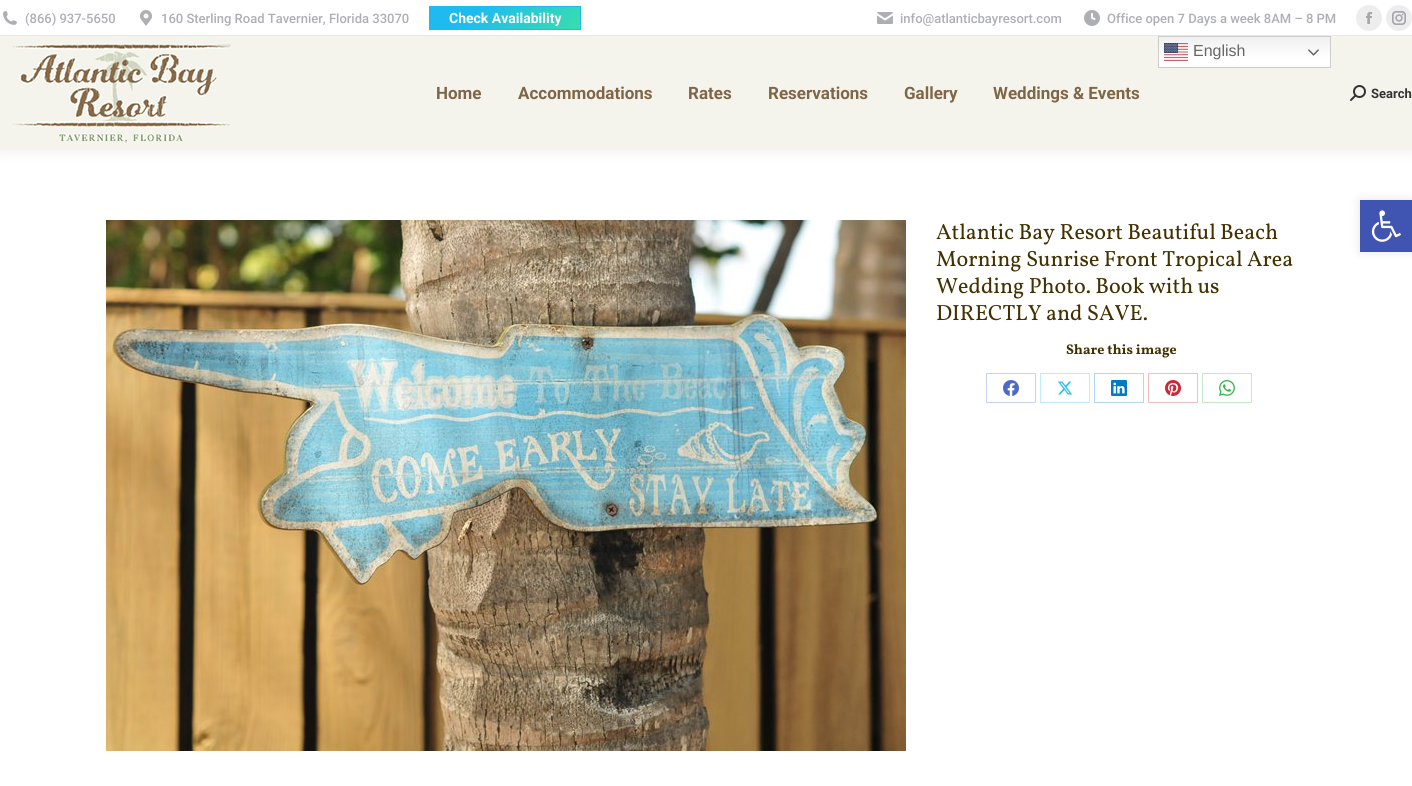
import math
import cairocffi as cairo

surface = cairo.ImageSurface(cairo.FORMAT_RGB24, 1412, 786)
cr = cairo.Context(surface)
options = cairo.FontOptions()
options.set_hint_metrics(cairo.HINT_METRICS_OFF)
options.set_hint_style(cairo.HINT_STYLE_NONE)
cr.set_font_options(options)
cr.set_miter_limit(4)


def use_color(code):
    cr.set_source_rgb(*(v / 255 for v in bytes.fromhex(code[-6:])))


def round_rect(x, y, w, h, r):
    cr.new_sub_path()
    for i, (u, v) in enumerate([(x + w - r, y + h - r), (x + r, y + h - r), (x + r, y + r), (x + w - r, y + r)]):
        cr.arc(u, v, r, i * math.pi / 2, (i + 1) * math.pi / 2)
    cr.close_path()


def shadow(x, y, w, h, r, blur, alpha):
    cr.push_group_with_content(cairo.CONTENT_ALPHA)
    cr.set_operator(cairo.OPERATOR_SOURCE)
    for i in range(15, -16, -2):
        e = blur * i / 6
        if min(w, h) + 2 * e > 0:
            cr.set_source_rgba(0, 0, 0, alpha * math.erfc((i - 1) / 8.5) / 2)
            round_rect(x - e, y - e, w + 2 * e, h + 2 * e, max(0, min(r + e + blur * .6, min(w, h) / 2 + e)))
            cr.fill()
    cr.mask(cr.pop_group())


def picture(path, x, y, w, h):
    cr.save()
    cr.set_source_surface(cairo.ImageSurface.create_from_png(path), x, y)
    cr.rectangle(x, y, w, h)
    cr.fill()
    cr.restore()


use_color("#ffffff")
cr.paint()
use_color("#000000")
shadow(-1, -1, 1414, 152, 0, 7.5, 0.07)
use_color("#f4f4ec")
cr.rectangle(0, 36, 1412, 114)
cr.fill()
use_color("#ffffff")
cr.rectangle(0, 0, 1412, 35)
cr.fill()
picture("img1.png", 3, 11, 14, 14)
cr.select_font_face("Roboto Medium")
cr.set_font_size(13)
use_color("#aeafb5")
cr.move_to(25, 23)
cr.show_text("(866) 937-5650")
picture("img2.png", 140, 10, 12, 16)
cr.move_to(161, 23)
cr.show_text("160 Sterling Road Tavernier, Florida 33070")
gradient = cairo.LinearGradient(461, -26, 549, 62)
gradient.add_color_stop_rgba(0.3, 0.118, 0.733, 0.941, 1)
gradient.add_color_stop_rgba(1, 0.224, 0.875, 0.667, 1)
cr.set_source(gradient)
cr.rectangle(430, 7, 150, 22)
cr.fill()
cr.rectangle(429.5, 6.5, 151, 23)
use_color("#1ebbf0")
cr.set_line_width(1)
cr.stroke()
cr.select_font_face("Roboto", cairo.FONT_SLANT_NORMAL, cairo.FONT_WEIGHT_BOLD)
cr.set_font_size(14)
use_color("#ffffff")
cr.move_to(449, 23)
cr.show_text("Check Availability")
picture("img3.png", 877, 12, 16, 12)
cr.select_font_face("Roboto Medium")
cr.set_font_size(13)
use_color("#aeafb5")
cr.move_to(900, 23)
cr.show_text("info@atlanticbayresort.com")
picture("img4.png", 1084, 10, 16, 16)
cr.move_to(1107, 23)
cr.show_text("Office open 7 Days a week 8AM – 8 PM")
use_color("#ededee")
cr.new_path()
cr.arc(1369, 18, 13, 0, 2 * math.pi)
cr.fill()
picture("img5.png", 1366, 12, 6, 12)
cr.arc(1399, 18, 13, 0, 2 * math.pi)
cr.fill()
picture("img6.png", 1392, 11, 14, 14)
use_color("#e7e7e7")
cr.rectangle(0, 35, 1412, 1)
cr.fill()
picture("img7.png", 12, 42, 219, 105)
gradient = cairo.LinearGradient(1245, 36, 1245, 68)
gradient.add_color_stop_rgba(0, 0.937, 0.937, 0.937, 1)
gradient.add_color_stop_rgba(0.7, 1, 1, 1, 1)
cr.set_source(gradient)
cr.rectangle(1159, 37, 171, 30)
cr.fill()
cr.rectangle(1158.5, 36.5, 172, 31)
use_color("#cccccc")
cr.stroke()
picture("img8.png", 1164, 43, 24, 18)
cr.select_font_face("Liberation Sans")
cr.set_font_size(16)
use_color("#666666")
cr.move_to(1193, 56)
cr.show_text("English")
picture("img9.png", 1308, 49, 11, 7)
cr.select_font_face("Roboto", cairo.FONT_SLANT_NORMAL, cairo.FONT_WEIGHT_BOLD)
cr.set_font_size(17)
use_color("#7f6648")
cr.move_to(436, 99)
cr.show_text("Home")
cr.move_to(518, 99)
cr.show_text("Accommodations")
cr.move_to(688, 99)
cr.show_text("Rates")
cr.move_to(768, 99)
cr.show_text("Reservations")
cr.move_to(904, 99)
cr.show_text("Gallery")
cr.move_to(993, 99)
cr.show_text("Weddings & Events")
picture("img10.png", 1350, 85, 16, 16)
cr.set_font_size(13)
use_color("#333333")
cr.move_to(1371, 98)
cr.show_text("Search")
picture("img11.png", 106, 220, 800, 531)
cr.select_font_face("Vollkorn")
cr.set_font_size(22)
use_color("#423000")
cr.move_to(936, 239)
cr.show_text("Atlantic Bay Resort Beautiful Beach")
cr.move_to(936, 266)
cr.show_text("Morning Sunrise Front Tropical Area")
cr.move_to(936, 293)
cr.show_text("Wedding Photo. Book with us")
cr.move_to(936, 320)
cr.show_text("DIRECTLY and SAVE.")
cr.select_font_face("Vollkorn", cairo.FONT_SLANT_NORMAL, cairo.FONT_WEIGHT_BOLD)
cr.set_font_size(14)
cr.move_to(1066, 354)
cr.show_text("Share this image")
cr.rectangle(986.5, 373.5, 49, 29)
use_color("#c9d2ee")
cr.stroke()
picture("img12.png", 1003, 380, 16, 16)
cr.rectangle(1040.5, 373.5, 49, 29)
use_color("#bfecf9")
cr.stroke()
picture("img13.png", 1058, 381, 15, 14)
cr.rectangle(1094.5, 373.5, 49, 29)
use_color("#b3d7ee")
cr.stroke()
picture("img14.png", 1111, 380, 16, 16)
cr.rectangle(1148.5, 373.5, 49, 29)
use_color("#f1bfc2")
cr.stroke()
picture("img15.png", 1165, 380, 16, 16)
cr.rectangle(1202.5, 373.5, 49, 29)
use_color("#c3e9ca")
cr.stroke()
picture("img16.png", 1219, 380, 16, 16)
use_color("#000000")
shadow(1360, 200, 52, 52, 0, 5, 0.1)
use_color("#4054b2")
cr.rectangle(1360, 200, 52, 52)
cr.fill()
picture("img17.png", 1371, 210, 30, 32)
surface.write_to_png("result.png")
